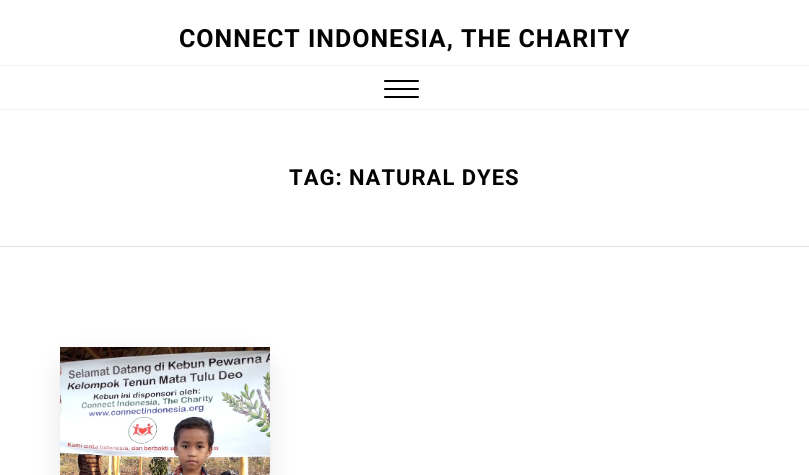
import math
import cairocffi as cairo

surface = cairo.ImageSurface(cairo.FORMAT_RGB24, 809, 475)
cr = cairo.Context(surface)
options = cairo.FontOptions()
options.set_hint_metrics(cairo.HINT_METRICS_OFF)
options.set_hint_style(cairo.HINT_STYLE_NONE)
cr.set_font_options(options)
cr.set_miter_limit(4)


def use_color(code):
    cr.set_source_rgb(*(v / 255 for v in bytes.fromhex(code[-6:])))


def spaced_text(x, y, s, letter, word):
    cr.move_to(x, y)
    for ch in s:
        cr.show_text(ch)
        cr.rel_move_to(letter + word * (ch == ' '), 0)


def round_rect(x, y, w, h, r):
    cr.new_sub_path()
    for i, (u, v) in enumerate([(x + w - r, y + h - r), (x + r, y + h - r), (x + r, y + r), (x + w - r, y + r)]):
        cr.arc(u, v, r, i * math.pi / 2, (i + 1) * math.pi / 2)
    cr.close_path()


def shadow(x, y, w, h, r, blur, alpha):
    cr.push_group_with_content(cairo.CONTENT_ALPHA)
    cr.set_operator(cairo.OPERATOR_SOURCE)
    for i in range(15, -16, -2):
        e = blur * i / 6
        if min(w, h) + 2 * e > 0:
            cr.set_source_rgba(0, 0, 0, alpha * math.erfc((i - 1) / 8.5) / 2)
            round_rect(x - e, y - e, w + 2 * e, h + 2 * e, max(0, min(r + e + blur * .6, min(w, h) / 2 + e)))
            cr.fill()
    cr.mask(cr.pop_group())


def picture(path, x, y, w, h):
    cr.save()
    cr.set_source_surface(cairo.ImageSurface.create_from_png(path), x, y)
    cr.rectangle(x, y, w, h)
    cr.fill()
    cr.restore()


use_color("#ffffff")
cr.paint()
cr.select_font_face("Roboto", cairo.FONT_SLANT_NORMAL, cairo.FONT_WEIGHT_BOLD)
cr.set_font_size(25)
use_color("#030303")
spaced_text(179, 47, "CONNECT INDONESIA, THE CHARITY", 1, 0)
use_color("#f2f2f2")
cr.rectangle(0, 65, 809, 1)
cr.fill()
cr.rectangle(0, 109, 809, 1)
cr.fill()
use_color("#000000")
round_rect(384, 80, 35, 2, 1)
cr.fill()
round_rect(384, 88, 35, 2, 1)
cr.fill()
round_rect(384, 96, 35, 2, 1)
cr.fill()
use_color("#dddddd")
cr.rectangle(0, 246, 809, 1)
cr.fill()
cr.set_font_size(22)
use_color("#030303")
spaced_text(289, 185, "TAG: NATURAL DYES", 1, 0)
use_color("#000000")
shadow(60, 357, 210, 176, 20, 12.5, 0.1)
picture("img1.png", 60, 347, 210, 128)
surface.write_to_png("result.png")
